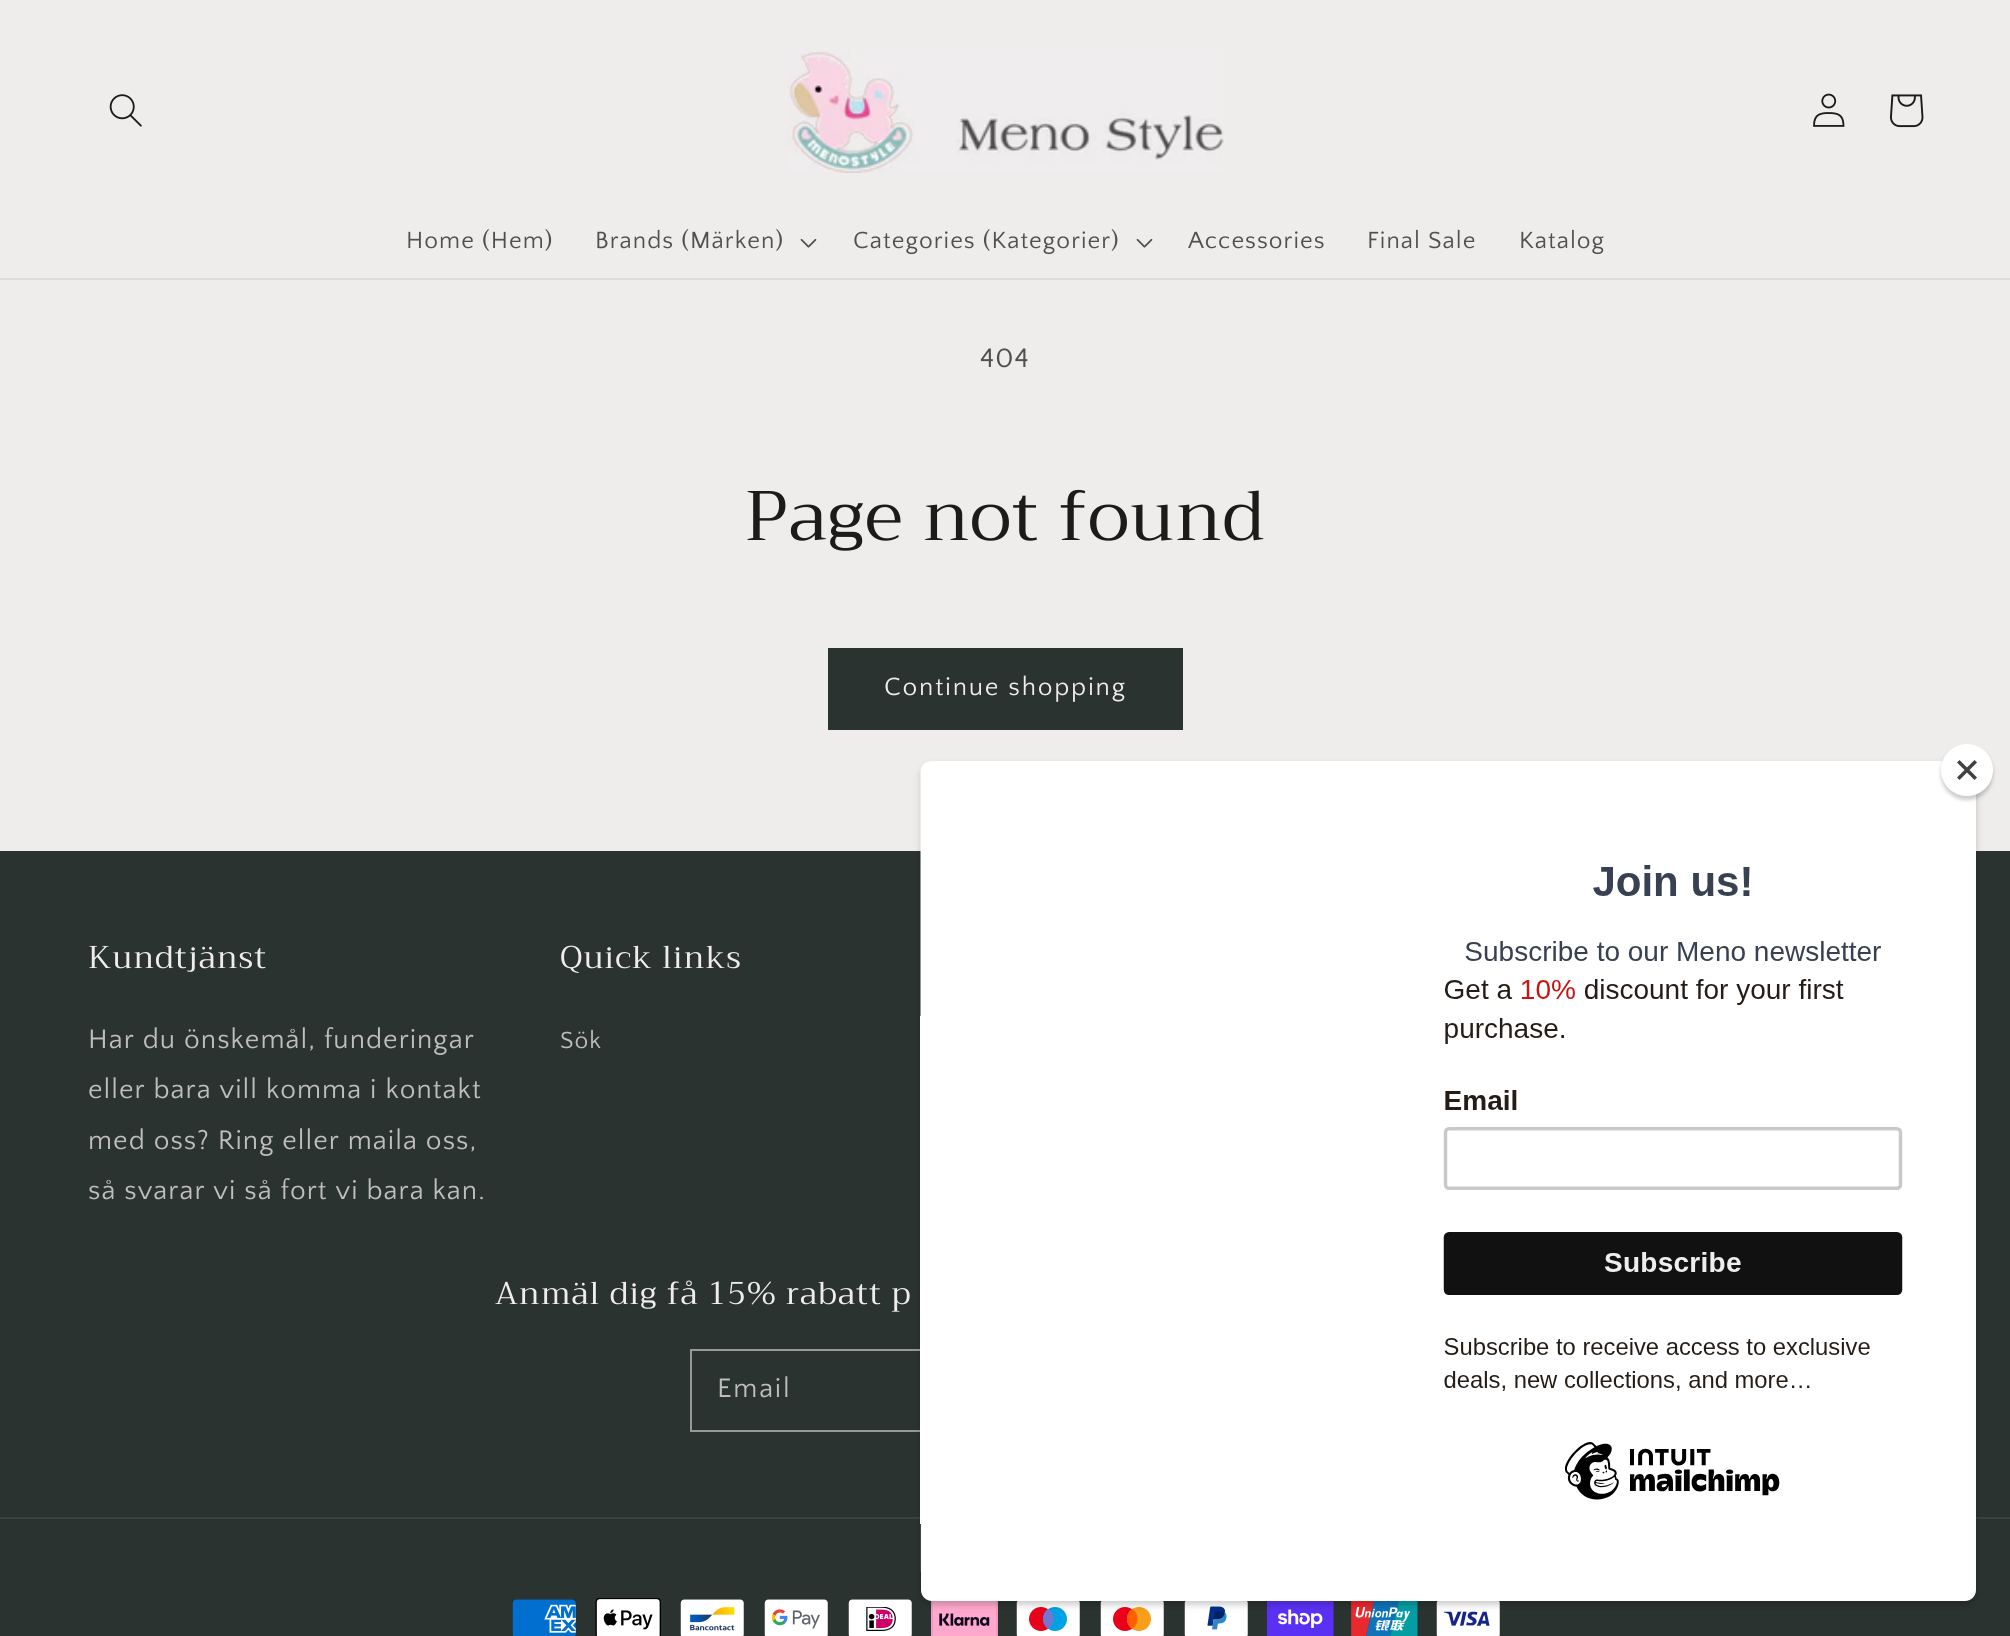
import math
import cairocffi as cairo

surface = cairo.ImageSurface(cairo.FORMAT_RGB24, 2010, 1636)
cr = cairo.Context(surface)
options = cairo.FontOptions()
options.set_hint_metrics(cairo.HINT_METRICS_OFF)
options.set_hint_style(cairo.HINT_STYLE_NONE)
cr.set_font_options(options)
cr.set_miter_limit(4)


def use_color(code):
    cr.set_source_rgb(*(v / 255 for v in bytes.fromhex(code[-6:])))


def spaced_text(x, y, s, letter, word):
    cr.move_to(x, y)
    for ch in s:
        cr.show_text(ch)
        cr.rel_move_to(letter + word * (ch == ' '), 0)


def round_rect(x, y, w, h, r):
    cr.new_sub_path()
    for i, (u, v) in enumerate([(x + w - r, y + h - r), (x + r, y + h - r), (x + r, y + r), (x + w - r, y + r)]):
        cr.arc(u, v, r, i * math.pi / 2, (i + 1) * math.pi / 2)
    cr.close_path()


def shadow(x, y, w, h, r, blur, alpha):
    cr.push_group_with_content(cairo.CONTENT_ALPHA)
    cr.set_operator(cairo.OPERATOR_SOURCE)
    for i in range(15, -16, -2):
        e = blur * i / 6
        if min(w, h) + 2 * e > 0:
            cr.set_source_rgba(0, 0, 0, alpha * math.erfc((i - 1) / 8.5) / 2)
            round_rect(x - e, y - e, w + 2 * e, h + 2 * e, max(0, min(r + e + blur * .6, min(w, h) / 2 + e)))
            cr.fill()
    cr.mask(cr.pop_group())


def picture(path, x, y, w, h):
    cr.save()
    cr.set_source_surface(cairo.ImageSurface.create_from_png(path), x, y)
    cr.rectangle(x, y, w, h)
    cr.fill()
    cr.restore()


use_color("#efecec")
cr.paint()
use_color("#dedbdb")
cr.rectangle(0, 278, 2010, 2)
cr.fill()
picture("img1.png", 109, 94, 33, 33)
picture("img2.png", 787, 49, 438, 124)
picture("img3.png", 1813, 93, 32, 34)
picture("img4.png", 1890, 94, 34, 34)
cr.select_font_face("Quattrocento Sans")
cr.set_font_size(24.5)
use_color("#514f4f")
spaced_text(406, 248, "Home (Hem)", 1.05, 0)
spaced_text(595, 248, "Brands (Märken)", 1.05, 0)
picture("img5.png", 800, 238, 17, 10)
spaced_text(853, 248, "Categories (Kategorier)", 1.05, 0)
picture("img5.png", 1136, 238, 17, 10)
spaced_text(1188, 248, "Accessories", 1.05, 0)
spaced_text(1367, 248, "Final Sale", 1.05, 0)
spaced_text(1519, 248, "Katalog", 1.05, 0)
cr.set_font_size(28)
spaced_text(980, 367, "404", 1.05, 0)
cr.select_font_face("Trirong")
cr.set_font_size(70)
use_color("#1c1a1a")
spaced_text(745, 540, "Page not found", 1.05, 0)
cr.rectangle(829, 649, 353, 80)
use_color("#2a332f")
cr.stroke()
cr.rectangle(830, 650, 351, 78)
cr.fill()
cr.select_font_face("Quattrocento Sans")
cr.set_font_size(26.25)
use_color("#efecec")
spaced_text(884, 695, "Continue shopping", 1.75, 0)
use_color("#2a332f")
cr.rectangle(0, 851, 2010, 785)
cr.fill()
cr.select_font_face("Trirong")
cr.set_font_size(31.5)
use_color("#efecec")
spaced_text(88, 968, "Kundtjänst", 1.05, 0)
cr.select_font_face("Quattrocento Sans")
cr.set_font_size(28)
use_color("#bebebd")
spaced_text(88, 1048, "Har du önskemål, funderingar", 1.05, 0)
spaced_text(88, 1098, "eller bara vill komma i kontakt", 1.05, 0)
spaced_text(88, 1149, "med oss? Ring eller maila oss,", 1.05, 0)
spaced_text(88, 1199, "så svarar vi så fort vi bara kan.", 1.05, 0)
cr.select_font_face("Trirong")
cr.set_font_size(31.5)
use_color("#efecec")
spaced_text(560, 968, "Quick links", 1.05, 0)
cr.select_font_face("Quattrocento Sans")
cr.set_font_size(24.5)
use_color("#bebebd")
spaced_text(560, 1048, "Sök", 1.05, 0)
cr.select_font_face("Trirong")
cr.set_font_size(31.5)
use_color("#efecec")
spaced_text(495, 1304, "Anmäl dig få 15% rabatt p", 1.05, 0)
cr.rectangle(691, 1350, 631, 81)
use_color("#969997")
cr.stroke()
cr.select_font_face("Quattrocento Sans")
cr.set_font_size(28)
use_color("#bebebd")
spaced_text(717, 1397, "Email", 1.75, 0)
use_color("#3a423e")
cr.rectangle(0, 1517, 2010, 2)
cr.fill()
picture("img6.png", 512, 1599, 64, 37)
picture("img7.png", 595, 1598, 66, 38)
picture("img8.png", 680, 1599, 64, 37)
picture("img9.png", 764, 1599, 64, 37)
picture("img10.png", 848, 1599, 64, 37)
picture("img11.png", 931, 1600, 67, 36)
picture("img12.png", 1016, 1601, 64, 35)
picture("img13.png", 1100, 1601, 64, 35)
picture("img14.png", 1184, 1601, 64, 35)
picture("img15.png", 1267, 1601, 67, 35)
picture("img16.png", 1351, 1601, 67, 35)
picture("img17.png", 1436, 1601, 64, 35)
use_color("#000000")
shadow(921, 765, 1055, 840, 11, 3.5, 0.2)
use_color("#ffffff")
round_rect(921, 761, 1055, 840, 11)
cr.fill()
picture("img18.png", 920, 762, 1056, 810)
use_color("#000000")
shadow(1941, 747, 52, 53, 26, 2, 0.2)
use_color("#ffffff")
cr.arc(1967, 770, 26, 0, 2 * math.pi)
cr.fill()
use_color("#414141")
cr.new_path()
cr.move_to(1974.5, 760)
cr.line_to(1977, 762.5)
cr.line_to(1959.5, 780)
cr.line_to(1957, 777.5)
cr.close_path()
cr.fill()
cr.new_path()
cr.move_to(1957, 762.5)
cr.line_to(1959.5, 760)
cr.line_to(1977, 777.5)
cr.line_to(1974.5, 780)
cr.close_path()
cr.fill()
surface.write_to_png("result.png")
